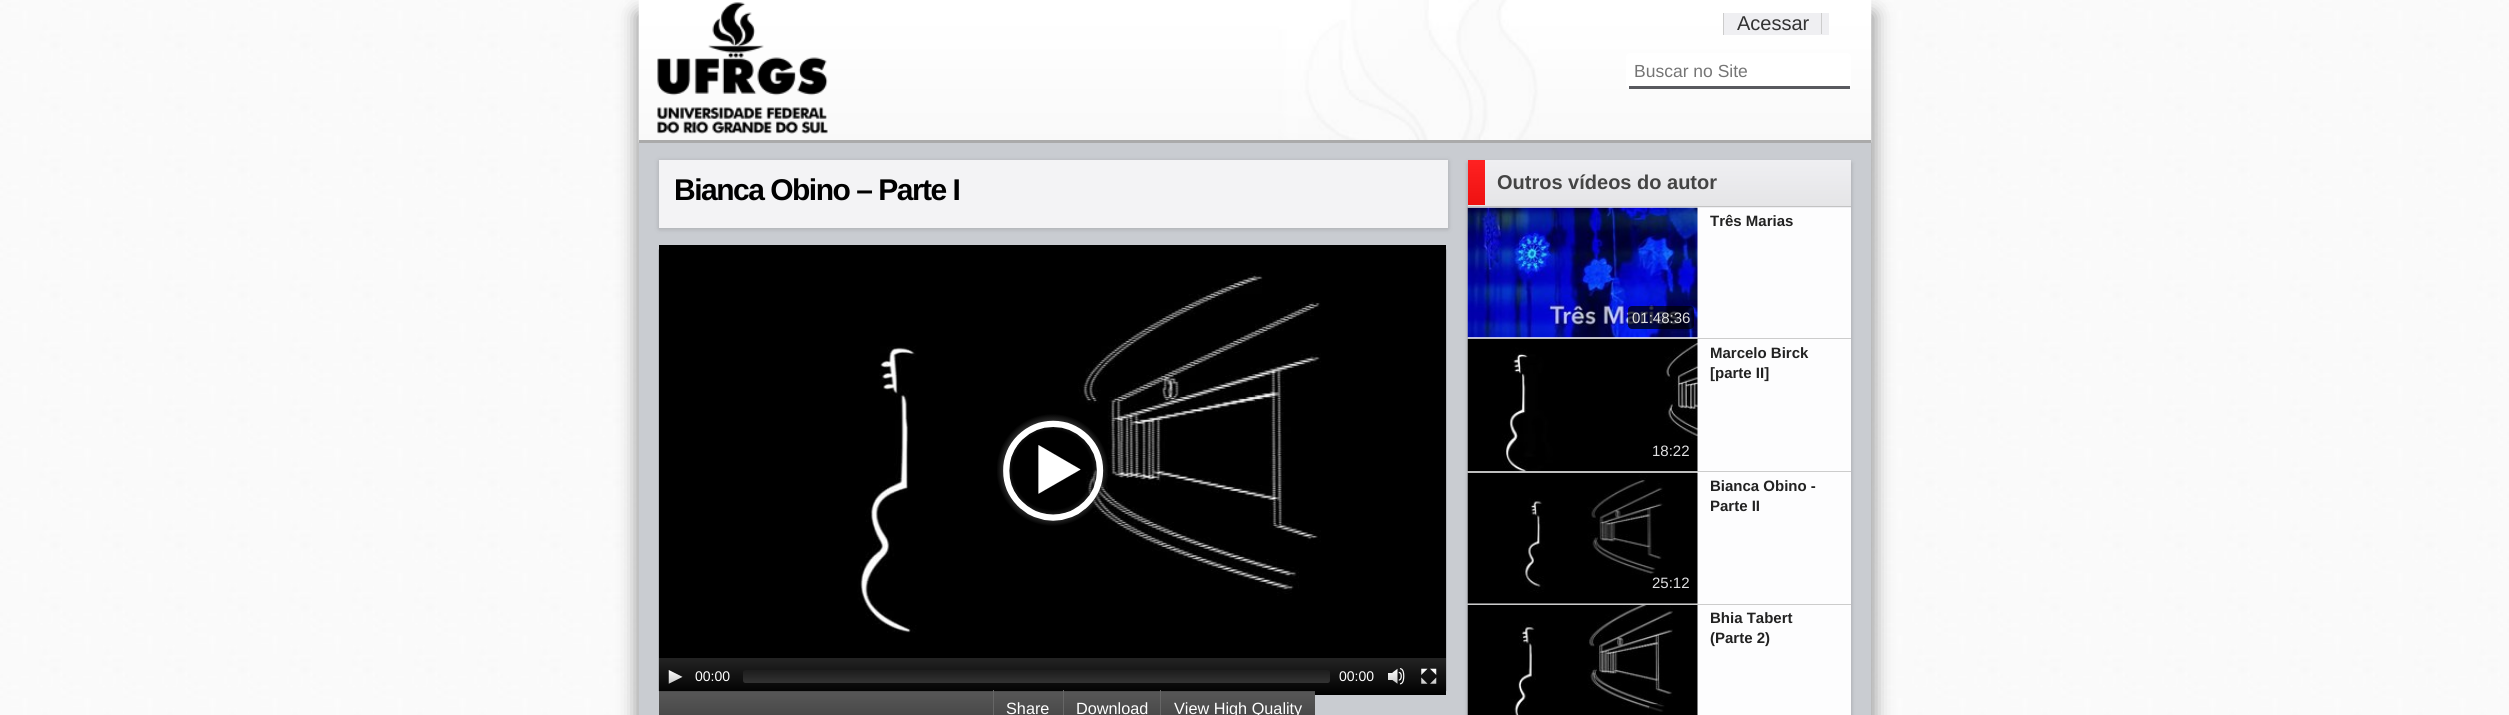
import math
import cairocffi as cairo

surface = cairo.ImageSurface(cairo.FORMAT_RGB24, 2509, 715)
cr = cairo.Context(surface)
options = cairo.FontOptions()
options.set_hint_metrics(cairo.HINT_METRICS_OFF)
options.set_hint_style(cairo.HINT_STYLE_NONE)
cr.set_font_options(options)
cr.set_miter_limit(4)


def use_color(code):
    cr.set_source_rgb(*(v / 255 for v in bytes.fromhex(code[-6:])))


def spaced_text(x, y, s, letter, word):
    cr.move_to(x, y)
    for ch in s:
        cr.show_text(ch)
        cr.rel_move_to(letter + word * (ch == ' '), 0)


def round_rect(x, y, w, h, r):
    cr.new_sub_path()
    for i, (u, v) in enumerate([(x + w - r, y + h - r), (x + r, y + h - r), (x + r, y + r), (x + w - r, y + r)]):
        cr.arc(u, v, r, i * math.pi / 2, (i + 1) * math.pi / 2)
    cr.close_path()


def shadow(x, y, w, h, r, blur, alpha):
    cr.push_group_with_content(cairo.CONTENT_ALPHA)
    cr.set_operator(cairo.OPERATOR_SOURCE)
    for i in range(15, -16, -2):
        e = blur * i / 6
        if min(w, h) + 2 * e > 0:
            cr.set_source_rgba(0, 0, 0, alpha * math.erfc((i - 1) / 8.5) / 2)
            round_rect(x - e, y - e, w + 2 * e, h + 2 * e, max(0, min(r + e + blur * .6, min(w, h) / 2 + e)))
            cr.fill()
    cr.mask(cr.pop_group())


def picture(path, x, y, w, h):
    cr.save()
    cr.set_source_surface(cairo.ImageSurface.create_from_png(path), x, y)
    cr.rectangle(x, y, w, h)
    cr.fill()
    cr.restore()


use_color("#ffffff")
cr.paint()
picture("img1.png", 0, 0, 2509, 715)
use_color("#888888")
shadow(638, 14, 1235, 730, 0, 9.5, 1)
picture("img2.png", 638, 0, 1234, 143)
use_color("#aaaaaa")
cr.rectangle(639, 140, 1232, 3)
cr.fill()
picture("img3.png", 657, 2, 171, 132)
use_color("#efeff2")
cr.rectangle(1724, 13, 105, 22)
cr.fill()
use_color("#cccccc")
cr.rectangle(1723, 13, 1, 22)
cr.fill()
cr.select_font_face("Arimo")
cr.set_font_size(20)
use_color("#333333")
cr.move_to(1737, 30)
cr.show_text("Acessar")
use_color("#cccccc")
cr.rectangle(1821, 13, 1, 21)
cr.fill()
use_color("#ffffff")
round_rect(1626, 53, 225, 36, 4)
cr.fill()
use_color("#595a5f")
cr.rectangle(1629, 86, 221, 3)
cr.fill()
cr.select_font_face("Liberation Sans")
cr.set_font_size(17.5)
use_color("#757575")
cr.move_to(1634, 77)
cr.show_text("Buscar no Site")
use_color("#c9ccd1")
cr.rectangle(639, 143, 1232, 572)
cr.fill()
use_color("#000000")
shadow(659, 161, 789, 68, 0, 2.5, 0.17)
use_color("#f3f3f5")
cr.rectangle(659, 160, 789, 68)
cr.fill()
cr.select_font_face("Liberation Sans", cairo.FONT_SLANT_NORMAL, cairo.FONT_WEIGHT_BOLD)
cr.set_font_size(30)
use_color("#000000")
spaced_text(674, 200, "Bianca Obino – Parte I", -1.5, 0)
cr.rectangle(659, 245, 787, 4)
cr.fill()
picture("img4.png", 658, 249, 789, 442)
picture("img5.png", 658, 250, 789, 441)
picture("img6.png", 997, 414, 111, 112)
gradient = cairo.LinearGradient(1053, 658, 1053, 695)
gradient.add_color_stop_rgba(0, 0.137, 0.137, 0.137, 1)
gradient.add_color_stop_rgba(1, 0, 0, 0, 1)
cr.set_source(gradient)
cr.rectangle(659, 658, 787, 37)
cr.fill()
picture("img7.png", 668, 670, 15, 14)
cr.select_font_face("Liberation Sans")
cr.set_font_size(14)
use_color("#ffffff")
cr.move_to(695, 681)
cr.show_text("00:00")
gradient = cairo.LinearGradient(1036, 670, 1036, 683)
gradient.add_color_stop_rgba(0, 0.118, 0.118, 0.118, 0.8)
gradient.add_color_stop_rgba(1, 0.235, 0.235, 0.235, 0.8)
cr.set_source(gradient)
round_rect(743, 670, 587, 13, 2.5)
cr.fill()
use_color("#ffffff")
cr.move_to(1339, 681)
cr.show_text("00:00")
picture("img8.png", 1388, 668, 17, 17)
picture("img9.png", 1421, 668, 16, 16)
use_color("#333333")
cr.rectangle(659, 691, 656, 24)
cr.fill()
picture("img10.png", 659, 691, 656, 24)
cr.select_font_face("Arimo")
cr.set_font_size(16.25)
use_color("#ffffff")
cr.move_to(1006, 714)
cr.show_text("Share")
use_color("#666666")
cr.rectangle(993, 690, 1, 25)
cr.fill()
use_color("#ffffff")
cr.move_to(1076, 714)
cr.show_text("Download")
use_color("#666666")
cr.rectangle(1063, 690, 1, 25)
cr.fill()
use_color("#ffffff")
cr.move_to(1174, 714)
cr.show_text("View High Quality")
use_color("#666666")
cr.rectangle(1160, 690, 1, 25)
cr.fill()
use_color("#000000")
shadow(1468, 163, 383, 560, 0, 2.5, 0.21)
gradient = cairo.LinearGradient(1659, 160, 1659, 206)
gradient.add_color_stop_rgba(0, 0.937, 0.937, 0.949, 1)
gradient.add_color_stop_rgba(1, 0.898, 0.898, 0.906, 1)
cr.set_source(gradient)
cr.rectangle(1468, 160, 383, 46)
cr.fill()
gradient = cairo.LinearGradient(1659, 206, 1659, 253)
gradient.add_color_stop_rgba(0, 0.937, 0.937, 0.949, 1)
gradient.add_color_stop_rgba(1, 0.898, 0.898, 0.906, 1)
cr.set_source(gradient)
cr.rectangle(1468, 207, 383, 1)
cr.fill()
use_color("#c3c3c3")
cr.rectangle(1468, 206, 383, 1)
cr.fill()
gradient = cairo.LinearGradient(1476, 160, 1476, 205)
gradient.add_color_stop_rgba(0, 1, 0.133, 0.133, 1)
gradient.add_color_stop_rgba(1, 0.933, 0.067, 0.067, 1)
cr.set_source(gradient)
cr.rectangle(1468, 160, 17, 45)
cr.fill()
cr.select_font_face("Liberation Sans", cairo.FONT_SLANT_NORMAL, cairo.FONT_WEIGHT_BOLD)
cr.set_font_size(20)
use_color("#444444")
cr.move_to(1497, 189)
cr.show_text("Outros vídeos do autor")
use_color("#fdfdfe")
cr.rectangle(1468, 208, 383, 507)
cr.fill()
use_color("#cccccc")
cr.rectangle(1468, 338, 383, 1)
cr.fill()
picture("img11.png", 1467, 207, 231, 131)
cr.set_font_size(15)
use_color("#222222")
cr.move_to(1710, 226)
cr.show_text("Três Marias")
cr.set_source_rgba(0, 0, 0, 0.7)
round_rect(1628, 306, 66, 23, 4)
cr.fill()
cr.select_font_face("Arimo")
use_color("#dfdfe1")
cr.move_to(1632, 323)
cr.show_text("01:48:36")
use_color("#cccccc")
cr.rectangle(1468, 471, 383, 1)
cr.fill()
picture("img12.png", 1467, 338, 231, 134)
cr.select_font_face("Liberation Sans", cairo.FONT_SLANT_NORMAL, cairo.FONT_WEIGHT_BOLD)
use_color("#222222")
cr.move_to(1710, 358)
cr.show_text("Marcelo Birck")
cr.move_to(1710, 378)
cr.show_text("[parte II]")
cr.select_font_face("Arimo")
use_color("#dfdfe1")
cr.move_to(1652, 456)
cr.show_text("18:22")
use_color("#cccccc")
cr.rectangle(1468, 604, 383, 1)
cr.fill()
picture("img13.png", 1467, 472, 231, 132)
cr.select_font_face("Liberation Sans", cairo.FONT_SLANT_NORMAL, cairo.FONT_WEIGHT_BOLD)
use_color("#222222")
cr.move_to(1710, 491)
cr.show_text("Bianca Obino -")
cr.move_to(1710, 511)
cr.show_text("Parte II")
cr.set_source_rgba(0, 0, 0, 0.7)
round_rect(1649, 573, 45, 22, 4)
cr.fill()
cr.select_font_face("Arimo")
use_color("#dfdfe1")
cr.move_to(1652, 588)
cr.show_text("25:12")
picture("img14.png", 1467, 605, 231, 110)
cr.select_font_face("Liberation Sans", cairo.FONT_SLANT_NORMAL, cairo.FONT_WEIGHT_BOLD)
use_color("#222222")
cr.move_to(1710, 623)
cr.show_text("Bhia Tabert")
cr.move_to(1710, 643)
cr.show_text("(Parte 2)")
cr.set_source_rgba(0, 0, 0, 0.7)
round_rect(1649, 704, 45, 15, 4)
cr.fill()
surface.write_to_png("result.png")
